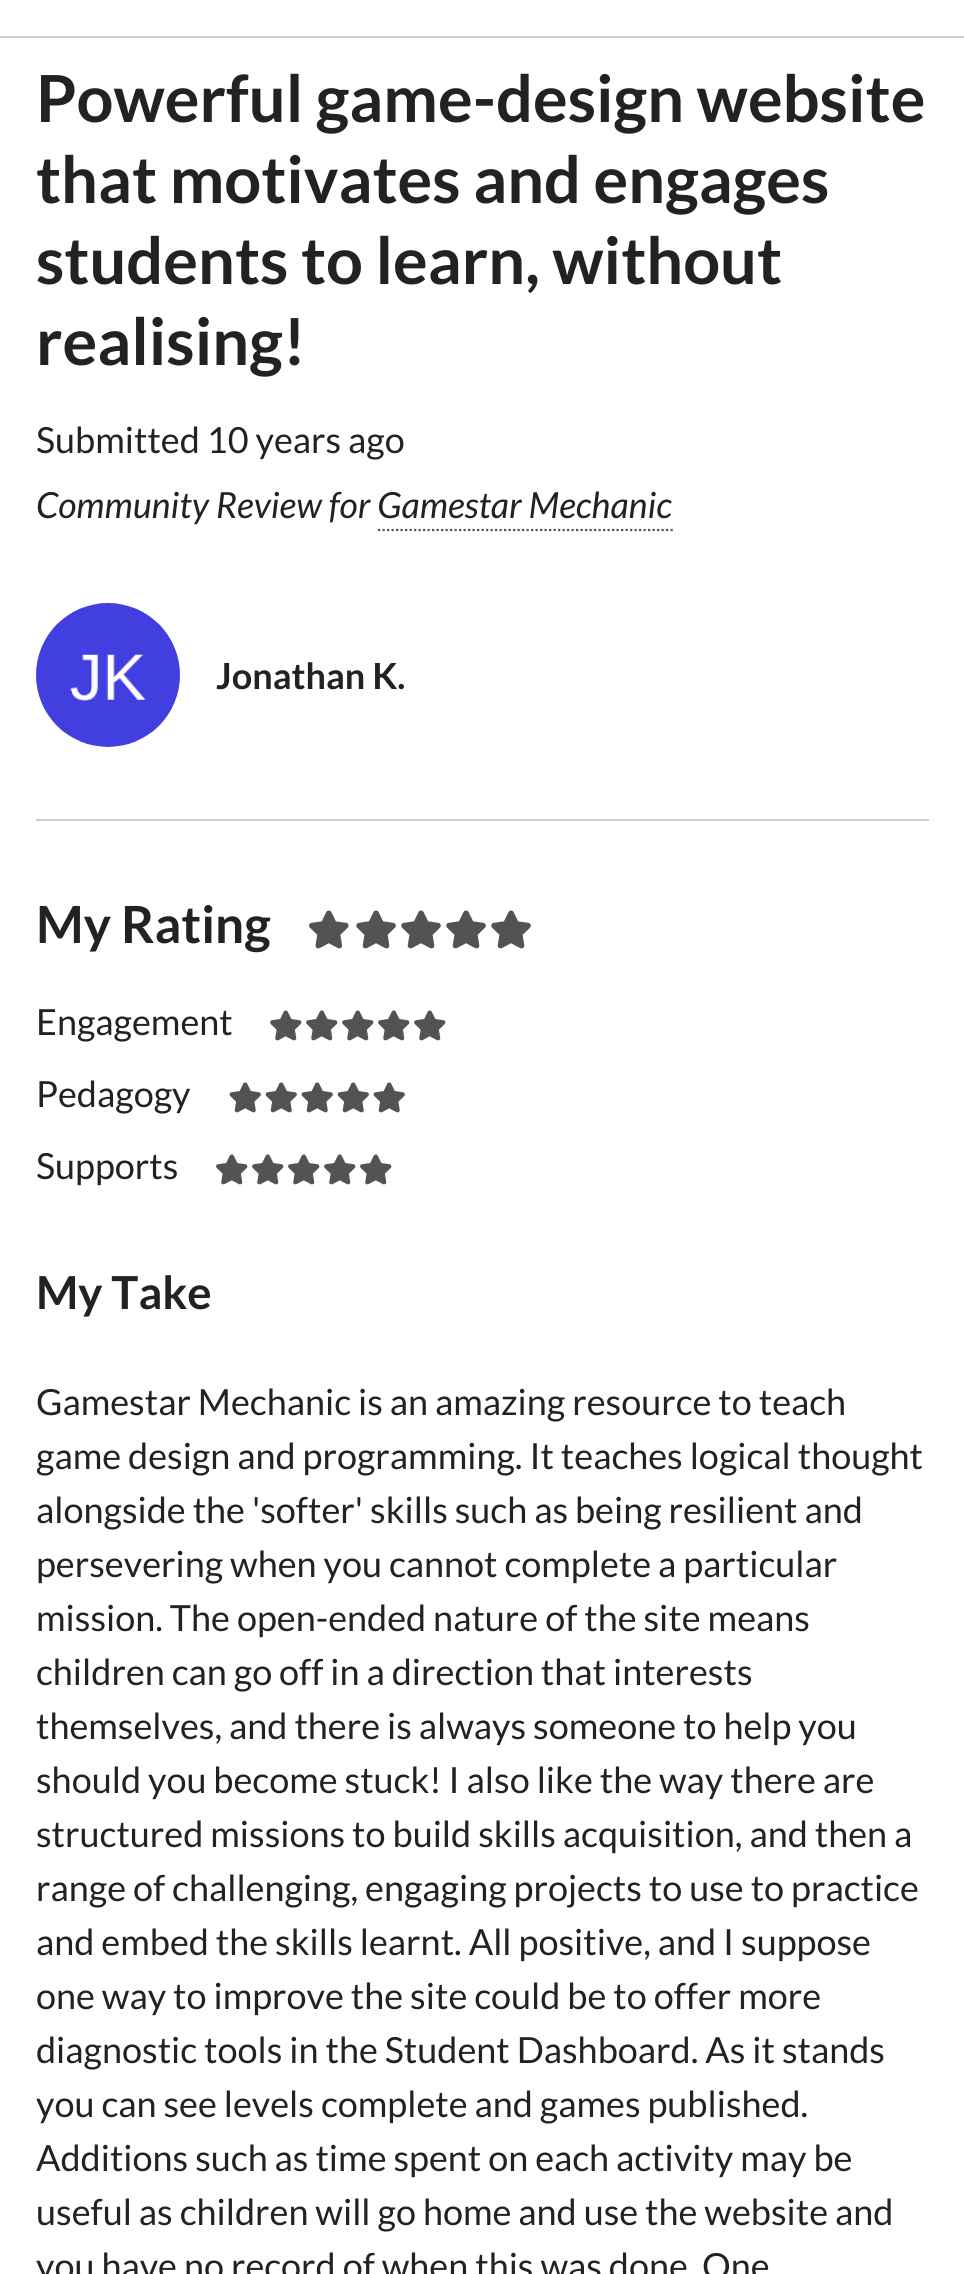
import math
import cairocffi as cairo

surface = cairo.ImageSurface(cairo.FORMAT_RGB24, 964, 2274)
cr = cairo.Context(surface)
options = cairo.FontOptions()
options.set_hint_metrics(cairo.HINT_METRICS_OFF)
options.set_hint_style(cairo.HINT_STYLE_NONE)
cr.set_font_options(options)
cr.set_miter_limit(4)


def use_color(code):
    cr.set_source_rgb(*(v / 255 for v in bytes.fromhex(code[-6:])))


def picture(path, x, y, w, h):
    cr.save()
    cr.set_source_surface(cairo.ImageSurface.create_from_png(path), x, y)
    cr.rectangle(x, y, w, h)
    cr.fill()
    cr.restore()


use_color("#ffffff")
cr.paint()
use_color("#cccccc")
cr.rectangle(0, 36, 964, 2)
cr.fill()
cr.select_font_face("Lato", cairo.FONT_SLANT_NORMAL, cairo.FONT_WEIGHT_BOLD)
cr.set_font_size(64.9)
use_color("#222222")
cr.move_to(36, 122)
cr.show_text("Powerful game-design website")
cr.move_to(36, 203)
cr.show_text("that motivates and engages")
cr.move_to(36, 284)
cr.show_text("students to learn, without")
cr.move_to(36, 365)
cr.show_text("realising!")
cr.select_font_face("Lato")
cr.set_font_size(36)
cr.move_to(36, 453)
cr.show_text("Submitted 10 years ago")
cr.select_font_face("Lato", cairo.FONT_SLANT_ITALIC)
cr.move_to(36, 518)
cr.show_text("Community Review for Gamestar Mechanic")
cr.new_path()
cr.move_to(378, 530)
cr.line_to(673, 530)
use_color("#535353")
cr.set_line_width(2.2)
cr.set_dash([2.25, 2.25])
cr.stroke()
picture("img1.png", 36, 603, 144, 144)
cr.select_font_face("Lato", cairo.FONT_SLANT_NORMAL, cairo.FONT_WEIGHT_BOLD)
use_color("#222222")
cr.move_to(216, 689)
cr.show_text("Jonathan K.")
use_color("#cccccc")
cr.rectangle(36, 819, 893, 2)
cr.fill()
cr.set_font_size(51.25)
use_color("#222222")
cr.move_to(36, 943)
cr.show_text("My Rating")
picture("img2.png", 309, 910, 40, 39)
picture("img3.png", 356, 910, 40, 39)
picture("img3.png", 401, 910, 40, 39)
picture("img3.png", 446, 910, 40, 39)
picture("img3.png", 491, 910, 40, 39)
cr.select_font_face("Lato")
cr.set_font_size(36)
cr.move_to(36, 1035)
cr.show_text("Engagement")
picture("img4.png", 270, 1010, 32, 31)
picture("img4.png", 306, 1010, 32, 31)
picture("img4.png", 342, 1010, 32, 31)
picture("img4.png", 378, 1010, 32, 31)
picture("img4.png", 414, 1010, 32, 31)
cr.move_to(36, 1107)
cr.show_text("Pedagogy")
picture("img5.png", 229, 1082, 32, 31)
picture("img5.png", 265, 1082, 32, 31)
picture("img5.png", 301, 1082, 32, 31)
picture("img5.png", 337, 1082, 32, 31)
picture("img5.png", 373, 1082, 32, 31)
cr.move_to(36, 1179)
cr.show_text("Supports")
picture("img4.png", 216, 1154, 32, 31)
picture("img4.png", 252, 1154, 32, 31)
picture("img4.png", 288, 1154, 32, 31)
picture("img4.png", 324, 1154, 32, 31)
picture("img4.png", 360, 1154, 32, 31)
cr.select_font_face("Lato", cairo.FONT_SLANT_NORMAL, cairo.FONT_WEIGHT_BOLD)
cr.set_font_size(45.5)
cr.move_to(36, 1309)
cr.show_text("My Take")
cr.select_font_face("Lato")
cr.set_font_size(36)
cr.move_to(36, 1415)
cr.show_text("Gamestar Mechanic is an amazing resource to teach")
cr.move_to(36, 1469)
cr.show_text("game design and programming. It teaches logical thought")
cr.move_to(36, 1523)
cr.show_text("alongside the 'softer' skills such as being resilient and")
cr.move_to(36, 1577)
cr.show_text("persevering when you cannot complete a particular")
cr.move_to(36, 1631)
cr.show_text("mission. The open-ended nature of the site means")
cr.move_to(36, 1685)
cr.show_text("children can go off in a direction that interests")
cr.move_to(36, 1739)
cr.show_text("themselves, and there is always someone to help you")
cr.move_to(36, 1793)
cr.show_text("should you become stuck! I also like the way there are")
cr.move_to(36, 1847)
cr.show_text("structured missions to build skills acquisition, and then a")
cr.move_to(36, 1901)
cr.show_text("range of challenging, engaging projects to use to practice")
cr.move_to(36, 1955)
cr.show_text("and embed the skills learnt. All positive, and I suppose")
cr.move_to(36, 2009)
cr.show_text("one way to improve the site could be to offer more")
cr.move_to(36, 2063)
cr.show_text("diagnostic tools in the Student Dashboard. As it stands")
cr.move_to(36, 2117)
cr.show_text("you can see levels complete and games published.")
cr.move_to(36, 2171)
cr.show_text("Additions such as time spent on each activity may be")
cr.move_to(36, 2225)
cr.show_text("useful as children will go home and use the website and")
cr.move_to(36, 2279)
cr.show_text("you have no record of when this was done")
cr.move_to(702, 2279)
cr.show_text("One")
surface.write_to_png("result.png")
